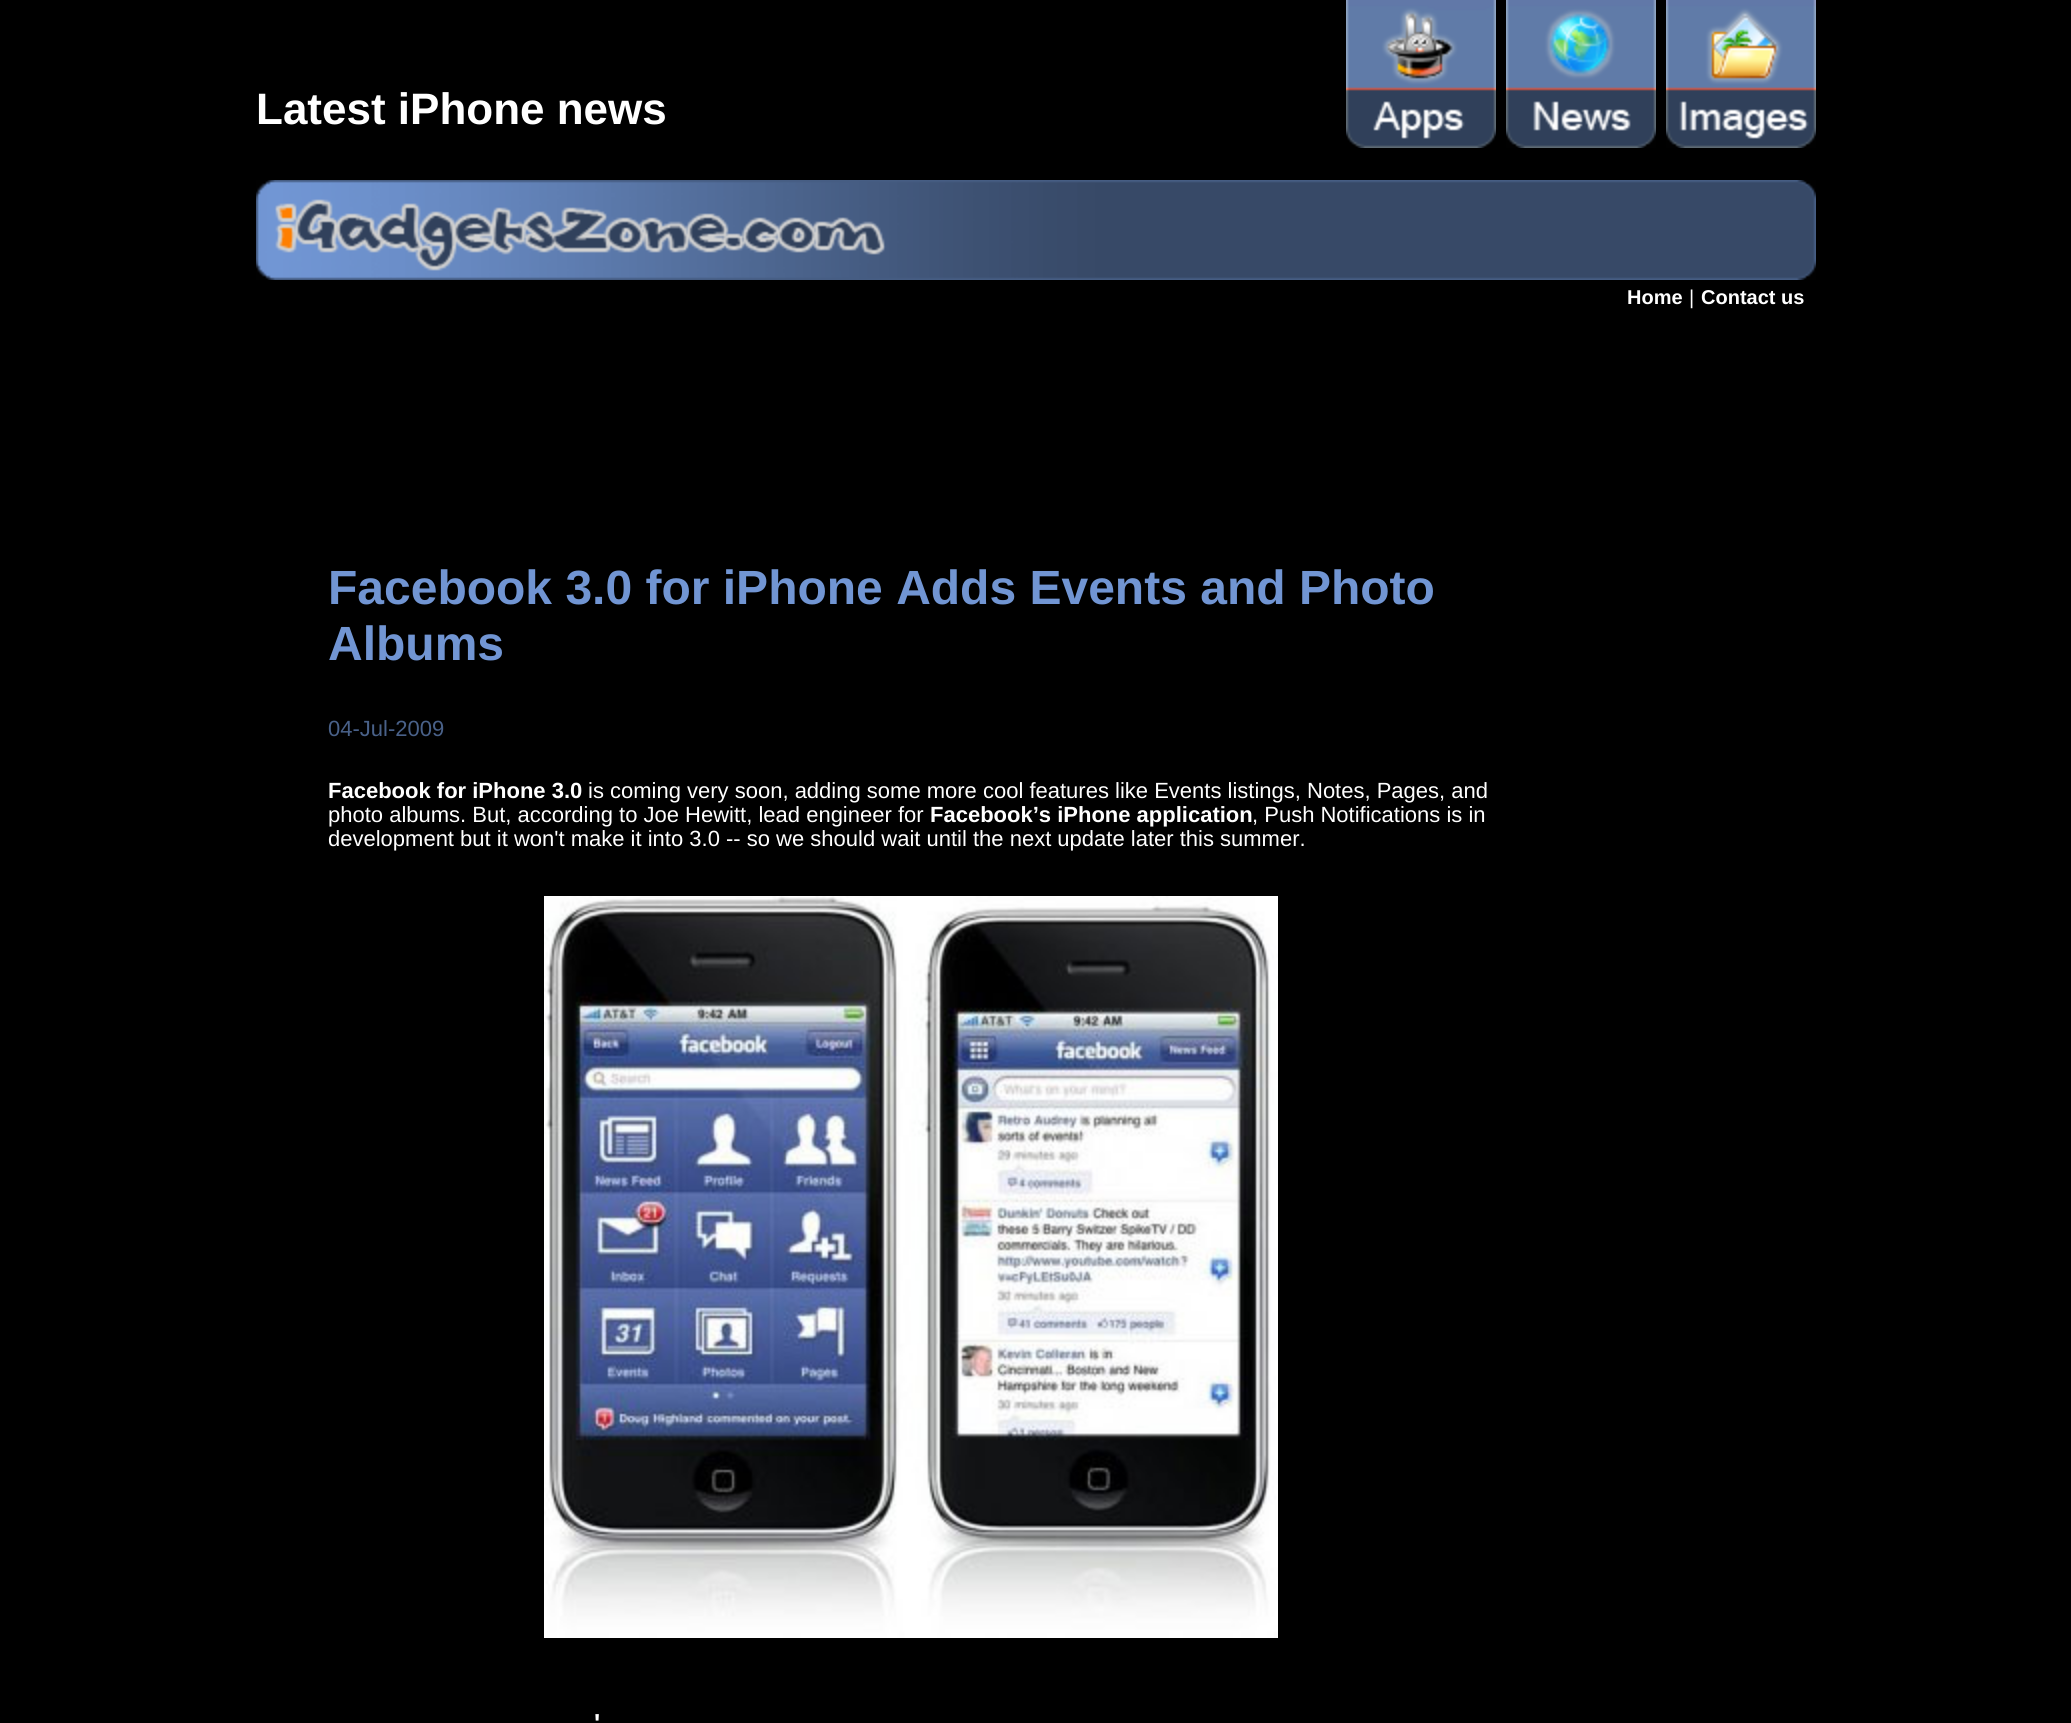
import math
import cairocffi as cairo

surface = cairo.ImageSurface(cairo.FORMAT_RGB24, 2071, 1723)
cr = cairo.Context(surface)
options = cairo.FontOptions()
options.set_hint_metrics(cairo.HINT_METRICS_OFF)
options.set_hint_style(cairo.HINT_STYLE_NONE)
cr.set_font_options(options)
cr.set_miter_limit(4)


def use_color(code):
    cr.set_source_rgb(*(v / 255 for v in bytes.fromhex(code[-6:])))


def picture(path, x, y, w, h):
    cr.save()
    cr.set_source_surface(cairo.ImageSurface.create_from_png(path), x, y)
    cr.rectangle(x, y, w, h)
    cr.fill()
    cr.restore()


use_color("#000000")
cr.paint()
cr.select_font_face("Liberation Sans", cairo.FONT_SLANT_NORMAL, cairo.FONT_WEIGHT_BOLD)
cr.set_font_size(44)
use_color("#ffffff")
cr.move_to(256, 124)
cr.show_text("Latest iPhone news")
picture("img1.png", 1346, 0, 150, 148)
picture("img2.png", 1506, 0, 150, 148)
picture("img3.png", 1666, 0, 150, 148)
picture("img4.png", 256, 180, 1560, 100)
cr.set_font_size(20)
cr.move_to(1627, 304)
cr.show_text("Home")
cr.select_font_face("Liberation Sans")
cr.move_to(1689, 304)
cr.show_text("|")
cr.select_font_face("Liberation Sans", cairo.FONT_SLANT_NORMAL, cairo.FONT_WEIGHT_BOLD)
cr.move_to(1701, 304)
cr.show_text("Contact us")
cr.set_font_size(48)
use_color("#7195d3")
cr.move_to(328, 604)
cr.show_text("Facebook 3.0 for iPhone Adds Events and Photo")
cr.move_to(328, 660)
cr.show_text("Albums")
cr.select_font_face("Liberation Sans")
cr.set_font_size(22)
use_color("#496189")
cr.move_to(328, 736)
cr.show_text("04-Jul-2009")
cr.select_font_face("Liberation Sans", cairo.FONT_SLANT_NORMAL, cairo.FONT_WEIGHT_BOLD)
use_color("#ffffff")
cr.move_to(328, 798)
cr.show_text("Facebook for iPhone 3.0")
cr.select_font_face("Liberation Sans")
cr.move_to(588, 798)
cr.show_text("is coming very soon, adding some more cool features like Events listings, Notes, Pages, and")
cr.move_to(328, 822)
cr.show_text("photo albums. But, according to Joe Hewitt, lead engineer for")
cr.select_font_face("Liberation Sans", cairo.FONT_SLANT_NORMAL, cairo.FONT_WEIGHT_BOLD)
cr.move_to(930, 822)
cr.show_text("Facebook’s iPhone application")
cr.select_font_face("Liberation Sans")
cr.move_to(1252, 822)
cr.show_text(", Push Notifications is in")
cr.move_to(328, 846)
cr.show_text("development but it won't make it into 3.0 -- so we should wait until the next update later this summer.")
picture("img5.png", 544, 896, 734, 742)
cr.select_font_face("Liberation Sans", cairo.FONT_SLANT_NORMAL, cairo.FONT_WEIGHT_BOLD)
cr.set_font_size(26)
cr.move_to(594, 1732)
cr.show_text("'")
surface.write_to_png("result.png")
